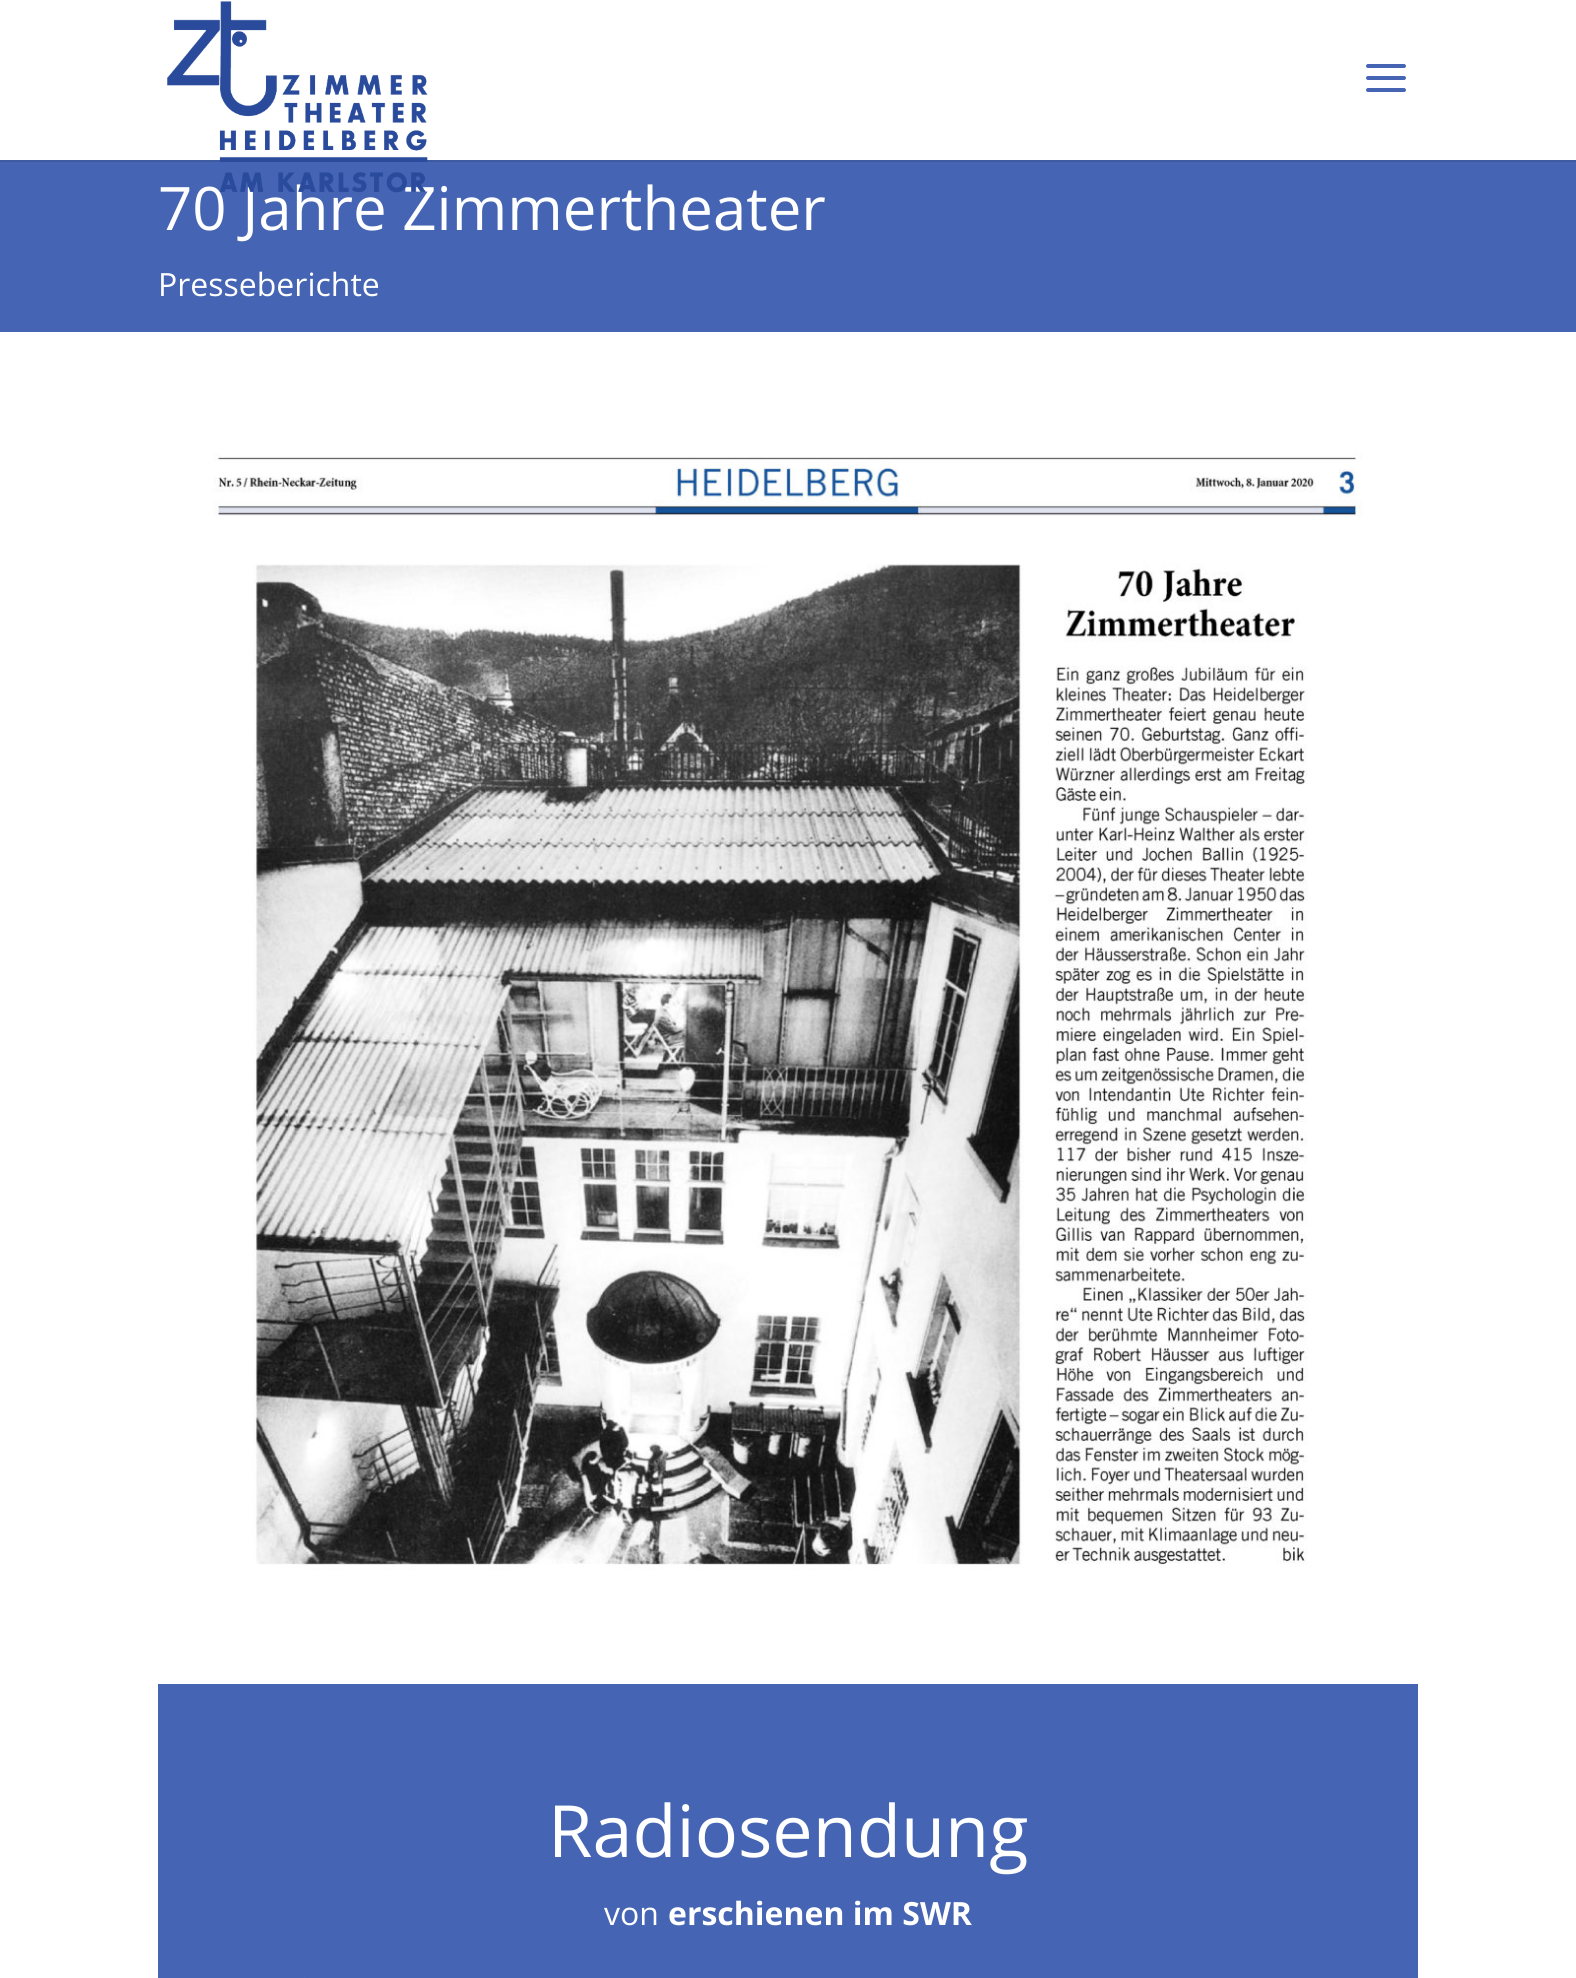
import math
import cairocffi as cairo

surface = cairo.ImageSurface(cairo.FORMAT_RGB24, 1576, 1978)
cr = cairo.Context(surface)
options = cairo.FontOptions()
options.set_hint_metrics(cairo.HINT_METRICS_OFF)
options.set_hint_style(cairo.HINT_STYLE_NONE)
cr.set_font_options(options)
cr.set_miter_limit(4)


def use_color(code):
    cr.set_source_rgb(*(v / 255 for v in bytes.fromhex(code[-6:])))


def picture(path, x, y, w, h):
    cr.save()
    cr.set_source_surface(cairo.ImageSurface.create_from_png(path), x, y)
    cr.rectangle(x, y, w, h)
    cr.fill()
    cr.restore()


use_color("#4565b4")
cr.paint()
use_color("#3e5ba2")
cr.rectangle(0, 160, 1576, 2)
cr.fill()
use_color("#ffffff")
cr.rectangle(0, 0, 1576, 160)
cr.fill()
cr.select_font_face("Open Sans")
cr.set_font_size(60)
cr.move_to(158, 230)
cr.show_text("70 Jahre Zimmertheater")
picture("img1.png", 167, 1, 261, 192)
picture("img2.png", 1366, 64, 40, 28)
cr.set_font_size(32)
cr.move_to(158, 296)
cr.show_text("Presseberichte")
cr.rectangle(0, 332, 1576, 1646)
cr.fill()
picture("img3.png", 213, 453, 1150, 1117)
use_color("#4565b4")
cr.rectangle(158, 1684, 1260, 294)
cr.fill()
cr.set_font_size(72)
use_color("#ffffff")
cr.move_to(548, 1857)
cr.show_text("Radiosendung")
cr.set_font_size(32)
cr.move_to(604, 1925)
cr.show_text("von")
cr.select_font_face("Open Sans", cairo.FONT_SLANT_NORMAL, cairo.FONT_WEIGHT_BOLD)
cr.move_to(668, 1925)
cr.show_text("erschienen im SWR")
use_color("#4968b6")
cr.rectangle(304, 1977, 1, 1)
cr.fill()
surface.write_to_png("result.png")
